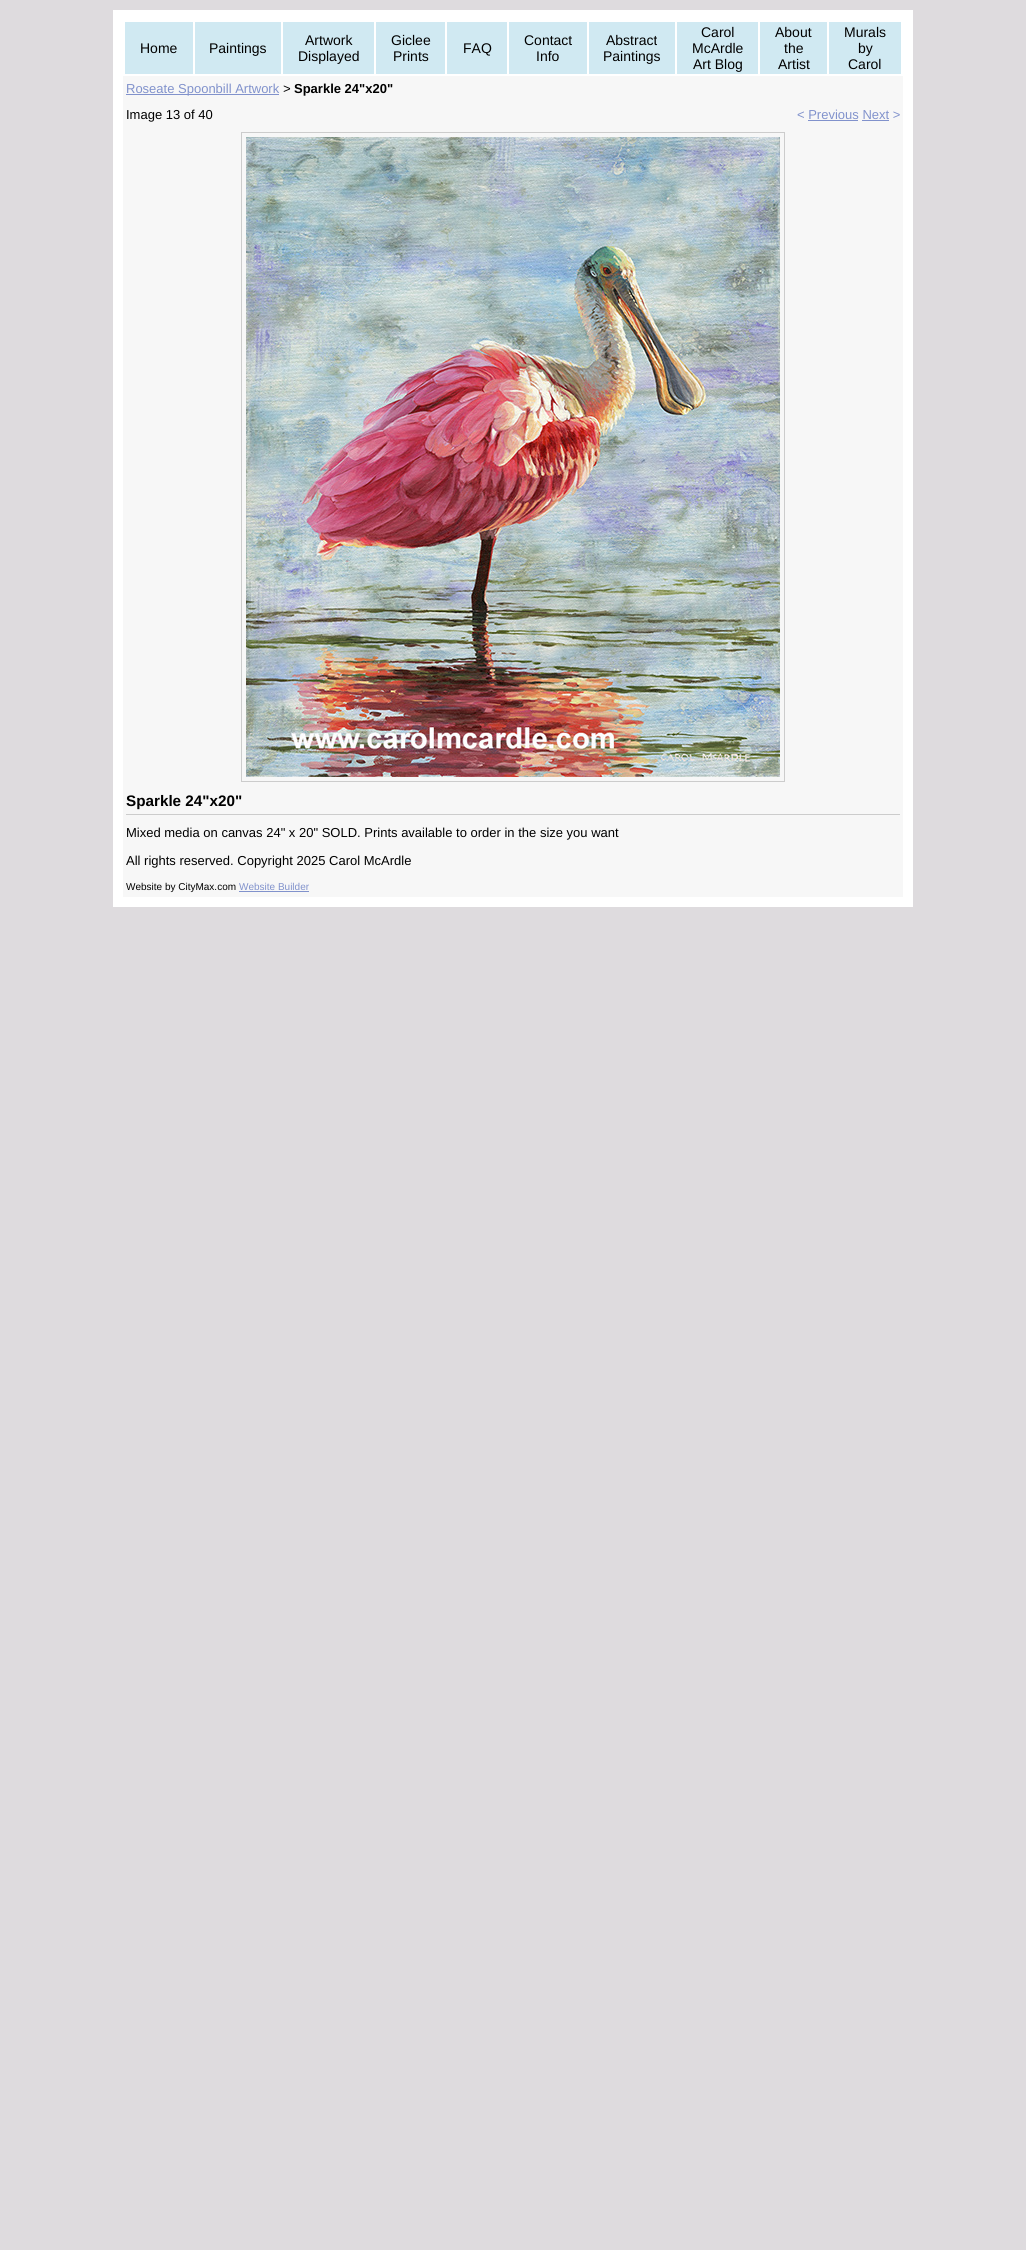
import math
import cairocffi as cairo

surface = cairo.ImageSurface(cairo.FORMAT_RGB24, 1026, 2250)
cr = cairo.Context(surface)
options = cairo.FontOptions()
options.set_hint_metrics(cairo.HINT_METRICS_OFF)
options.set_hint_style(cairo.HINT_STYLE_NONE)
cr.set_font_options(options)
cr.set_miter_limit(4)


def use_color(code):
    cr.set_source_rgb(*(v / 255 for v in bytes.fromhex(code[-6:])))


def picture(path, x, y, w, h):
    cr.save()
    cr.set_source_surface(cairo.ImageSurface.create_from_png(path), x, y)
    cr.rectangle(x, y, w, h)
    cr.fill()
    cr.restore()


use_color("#dedbde")
cr.paint()
use_color("#ffffff")
cr.rectangle(113, 10, 800, 897)
cr.fill()
use_color("#d0e9f2")
cr.rectangle(125, 22, 68, 52)
cr.fill()
cr.select_font_face("Liberation Sans")
cr.set_font_size(14)
use_color("#000000")
cr.move_to(140, 53)
cr.show_text("Home")
use_color("#d0e9f2")
cr.rectangle(195, 22, 86, 52)
cr.fill()
use_color("#000000")
cr.move_to(209, 53)
cr.show_text("Paintings")
use_color("#d0e9f2")
cr.rectangle(283, 22, 91, 52)
cr.fill()
use_color("#000000")
cr.move_to(305, 45)
cr.show_text("Artwork")
cr.move_to(298, 61)
cr.show_text("Displayed")
use_color("#d0e9f2")
cr.rectangle(376, 22, 69, 52)
cr.fill()
use_color("#000000")
cr.move_to(391, 45)
cr.show_text("Giclee")
cr.move_to(393, 61)
cr.show_text("Prints")
use_color("#d0e9f2")
cr.rectangle(447, 22, 60, 52)
cr.fill()
use_color("#000000")
cr.move_to(463, 53)
cr.show_text("FAQ")
use_color("#d0e9f2")
cr.rectangle(509, 22, 78, 52)
cr.fill()
use_color("#000000")
cr.move_to(524, 45)
cr.show_text("Contact")
cr.move_to(536, 61)
cr.show_text("Info")
use_color("#d0e9f2")
cr.rectangle(589, 22, 86, 52)
cr.fill()
use_color("#000000")
cr.move_to(606, 45)
cr.show_text("Abstract")
cr.move_to(603, 61)
cr.show_text("Paintings")
use_color("#d0e9f2")
cr.rectangle(677, 22, 81, 52)
cr.fill()
use_color("#000000")
cr.move_to(701, 37)
cr.show_text("Carol")
cr.move_to(692, 53)
cr.show_text("McArdle")
cr.move_to(693, 69)
cr.show_text("Art Blog")
use_color("#d0e9f2")
cr.rectangle(760, 22, 67, 52)
cr.fill()
use_color("#000000")
cr.move_to(775, 37)
cr.show_text("About")
cr.move_to(784, 53)
cr.show_text("the")
cr.move_to(778, 69)
cr.show_text("Artist")
use_color("#d0e9f2")
cr.rectangle(829, 22, 72, 52)
cr.fill()
use_color("#000000")
cr.move_to(844, 37)
cr.show_text("Murals")
cr.move_to(858, 53)
cr.show_text("by")
cr.move_to(848, 69)
cr.show_text("Carol")
use_color("#f7f7f7")
cr.rectangle(123, 76, 780, 821)
cr.fill()
use_color("#8192cc")
cr.rectangle(126, 94, 153, 1)
cr.fill()
cr.set_font_size(13)
cr.move_to(126, 93)
cr.show_text("Roseate Spoonbill Artwork")
cr.select_font_face("Liberation Mono")
use_color("#000000")
cr.move_to(283, 93)
cr.show_text(">")
cr.select_font_face("Liberation Sans", cairo.FONT_SLANT_NORMAL, cairo.FONT_WEIGHT_BOLD)
cr.move_to(294, 93)
cr.show_text("Sparkle 24\"x20\"")
cr.select_font_face("Liberation Sans")
cr.move_to(126, 119)
cr.show_text("Image 13 of 40")
use_color("#8192cc")
cr.move_to(797, 119)
cr.show_text("< Previous Next >")
cr.rectangle(808, 120, 50, 1)
cr.fill()
cr.rectangle(862, 120, 27, 1)
cr.fill()
cr.rectangle(241.5, 132.5, 543, 649)
use_color("#cccccc")
cr.set_line_width(1)
cr.stroke()
picture("img1.png", 246, 137, 534, 640)
cr.rectangle(126, 814, 774, 1)
cr.fill()
cr.select_font_face("Liberation Sans", cairo.FONT_SLANT_NORMAL, cairo.FONT_WEIGHT_BOLD)
cr.set_font_size(15.25)
use_color("#000000")
cr.move_to(126, 806)
cr.show_text("Sparkle 24\"x20\"")
cr.select_font_face("Liberation Sans")
cr.set_font_size(13)
cr.move_to(126, 837)
cr.show_text("Mixed media on canvas 24\" x 20\" SOLD. Prints available to order in the size you want")
cr.move_to(126, 865)
cr.show_text("All rights reserved. Copyright 2025 Carol McArdle")
cr.set_font_size(10)
cr.move_to(126, 890)
cr.show_text("Website by CityMax.com")
use_color("#8192cc")
cr.move_to(239, 890)
cr.show_text("Website Builder")
cr.rectangle(239, 891, 70, 1)
cr.fill()
surface.write_to_png("result.png")
